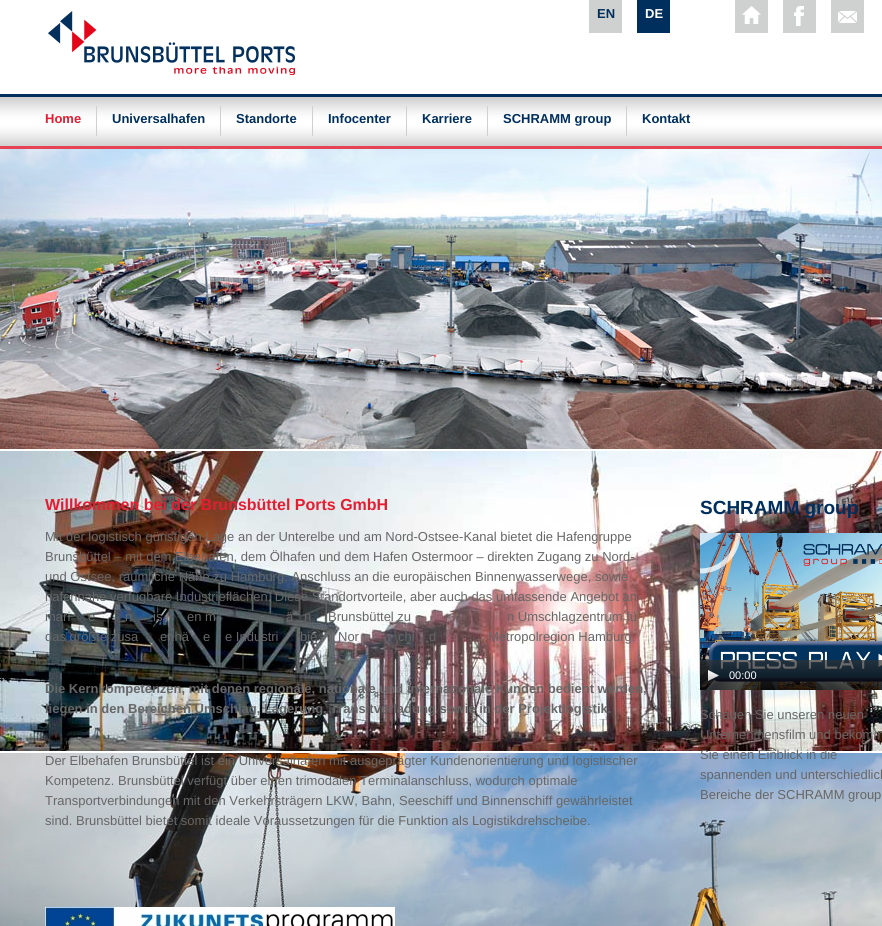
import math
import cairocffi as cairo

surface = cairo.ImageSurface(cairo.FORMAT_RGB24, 882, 926)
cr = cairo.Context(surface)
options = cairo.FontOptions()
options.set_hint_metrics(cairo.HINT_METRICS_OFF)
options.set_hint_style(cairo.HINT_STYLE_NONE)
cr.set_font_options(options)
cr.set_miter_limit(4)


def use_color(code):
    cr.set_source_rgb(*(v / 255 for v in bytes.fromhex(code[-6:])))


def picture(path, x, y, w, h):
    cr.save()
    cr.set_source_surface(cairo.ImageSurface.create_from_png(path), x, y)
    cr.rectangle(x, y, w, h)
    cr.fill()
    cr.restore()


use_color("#ffffff")
cr.paint()
picture("img1.png", 48, 11, 247, 64)
use_color("#cfd0d0")
cr.rectangle(589, 0, 33, 33)
cr.fill()
cr.select_font_face("Liberation Sans", cairo.FONT_SLANT_NORMAL, cairo.FONT_WEIGHT_BOLD)
cr.set_font_size(13)
use_color("#002f5d")
cr.move_to(597, 18)
cr.show_text("EN")
cr.rectangle(637, 0, 33, 33)
cr.fill()
use_color("#ffffff")
cr.move_to(645, 18)
cr.show_text("DE")
picture("img2.png", 735, 0, 33, 33)
picture("img3.png", 783, 0, 33, 33)
picture("img4.png", 831, 0, 33, 33)
picture("img5.png", 0, 94, 882, 55)
use_color("#e41d31")
cr.move_to(45, 123)
cr.show_text("Home")
use_color("#cfd0d0")
cr.rectangle(96, 106, 1, 30)
cr.fill()
use_color("#002f5d")
cr.move_to(112, 123)
cr.show_text("Universalhafen")
use_color("#cfd0d0")
cr.rectangle(220, 106, 1, 30)
cr.fill()
use_color("#002f5d")
cr.move_to(236, 123)
cr.show_text("Standorte")
use_color("#cfd0d0")
cr.rectangle(312, 106, 1, 30)
cr.fill()
use_color("#002f5d")
cr.move_to(328, 123)
cr.show_text("Infocenter")
use_color("#cfd0d0")
cr.rectangle(406, 106, 1, 30)
cr.fill()
use_color("#002f5d")
cr.move_to(422, 123)
cr.show_text("Karriere")
use_color("#cfd0d0")
cr.rectangle(487, 106, 1, 30)
cr.fill()
use_color("#002f5d")
cr.move_to(503, 123)
cr.show_text("SCHRAMM group")
use_color("#cfd0d0")
cr.rectangle(626, 106, 1, 30)
cr.fill()
use_color("#002f5d")
cr.move_to(642, 123)
cr.show_text("Kontakt")
picture("img6.png", 0, 149, 882, 300)
picture("img7.png", 0, 451, 882, 300)
picture("img8.png", 0, 753, 882, 173)
cr.set_font_size(16)
use_color("#e41d31")
cr.move_to(45, 510)
cr.show_text("Willkommen bei der Brunsbüttel Ports GmbH")
cr.select_font_face("Liberation Sans")
cr.set_font_size(13)
use_color("#666666")
cr.move_to(45, 541)
cr.show_text("Mit der logistisch günstigen Lage an der Unterelbe und am Nord-Ostsee-Kanal bietet die Hafengruppe")
cr.move_to(45, 561)
cr.show_text("Brunsbüttel – mit dem Elbehafen, dem Ölhafen und dem Hafen Ostermoor – direkten Zugang zu Nord-")
cr.move_to(45, 581)
cr.show_text("und Ostsee, räumliche Nähe zu Hamburg, Anschluss an die europäischen Binnenwasserwege, sowie")
cr.move_to(45, 601)
cr.show_text("hafennahe verfügbare Industrieflächen. Diese Standortvorteile, aber auch das umfassende Angebot an")
cr.move_to(45, 621)
cr.show_text("mari")
cr.move_to(88, 621)
cr.show_text("e")
cr.move_to(125, 621)
cr.show_text("n")
cr.move_to(153, 621)
cr.show_text("is")
cr.move_to(187, 621)
cr.show_text("en m")
cr.move_to(286, 621)
cr.show_text("ä")
cr.move_to(304, 621)
cr.show_text("n")
cr.move_to(328, 621)
cr.show_text("Brunsbüttel zu")
cr.move_to(507, 621)
cr.show_text("n Umschlagzentrum fü")
cr.move_to(45, 641)
cr.show_text("das größte zusa")
cr.move_to(160, 641)
cr.show_text("enhä")
cr.move_to(203, 641)
cr.show_text("e")
cr.move_to(225, 641)
cr.show_text("e Industri")
cr.move_to(300, 641)
cr.show_text("bie")
cr.move_to(338, 641)
cr.show_text("Nor")
cr.move_to(398, 641)
cr.show_text("chl")
cr.move_to(429, 641)
cr.show_text("d")
cr.move_to(488, 641)
cr.show_text("Metropolregion Hamburg.")
cr.select_font_face("Liberation Sans", cairo.FONT_SLANT_NORMAL, cairo.FONT_WEIGHT_BOLD)
cr.move_to(45, 693)
cr.show_text("Die Kernkompetenzen, mit denen regionale, nationale und internationale Kunden bedient werden,")
cr.move_to(45, 713)
cr.show_text("liegen in den Bereichen Umschlag, Lagerung, Transitverladung sowie in der Projektlogistik.")
cr.select_font_face("Liberation Sans")
cr.move_to(45, 765)
cr.show_text("Der Elbehafen Brunsbüttel ist ein Universalhafen mit ausgeprägter Kundenorientierung und logistischer")
cr.move_to(45, 785)
cr.show_text("Kompetenz. Brunsbüttel verfügt über einen trimodalen Terminalanschluss, wodurch optimale")
cr.move_to(45, 805)
cr.show_text("Transportverbindungen mit den Verkehrsträgern LKW, Bahn, Seeschiff und Binnenschiff gewährleistet")
cr.move_to(45, 825)
cr.show_text("sind. Brunsbüttel bietet somit ideale Voraussetzungen für die Funktion als Logistikdrehscheibe.")
picture("img9.png", 45, 907, 350, 19)
cr.select_font_face("Liberation Sans", cairo.FONT_SLANT_NORMAL, cairo.FONT_WEIGHT_BOLD)
cr.set_font_size(19)
use_color("#002f5d")
cr.move_to(700, 514)
cr.show_text("SCHRAMM group")
picture("img10.png", 700, 533, 182, 157)
cr.save()
cr.rectangle(700, 533, 50, 50)
cr.clip()
cr.set_source_rgba(1, 1, 1, 0.75)
cr.new_path()
cr.move_to(722.5, 532.5)
cr.line_to(689, 552)
cr.line_to(689, 513)
cr.close_path()
cr.fill()
cr.new_path()
cr.move_to(663, 533.5)
cr.curve_to(663, 513, 680, 496, 700.5, 496)
cr.curve_to(721, 496, 738, 513, 738, 533.5)
cr.curve_to(738, 554, 721, 571, 700.5, 571)
cr.curve_to(680, 571, 663, 554, 663, 533.5)
cr.close_path()
cr.set_line_width(5)
cr.stroke()
cr.restore()
picture("img11.png", 708, 670, 11, 11)
cr.select_font_face("Liberation Sans")
cr.set_font_size(11)
use_color("#ffffff")
cr.move_to(729, 679)
cr.show_text("00:00")
cr.set_font_size(13)
use_color("#666666")
cr.move_to(700, 719)
cr.show_text("Schauen Sie unseren neuen")
cr.move_to(700, 739)
cr.show_text("Unternehmensfilm und bekomm")
cr.move_to(700, 759)
cr.show_text("Sie einen Einblick in die")
cr.move_to(700, 779)
cr.show_text("spannenden und unterschiedlich")
cr.move_to(700, 799)
cr.show_text("Bereiche der SCHRAMM group")
surface.write_to_png("result.png")
